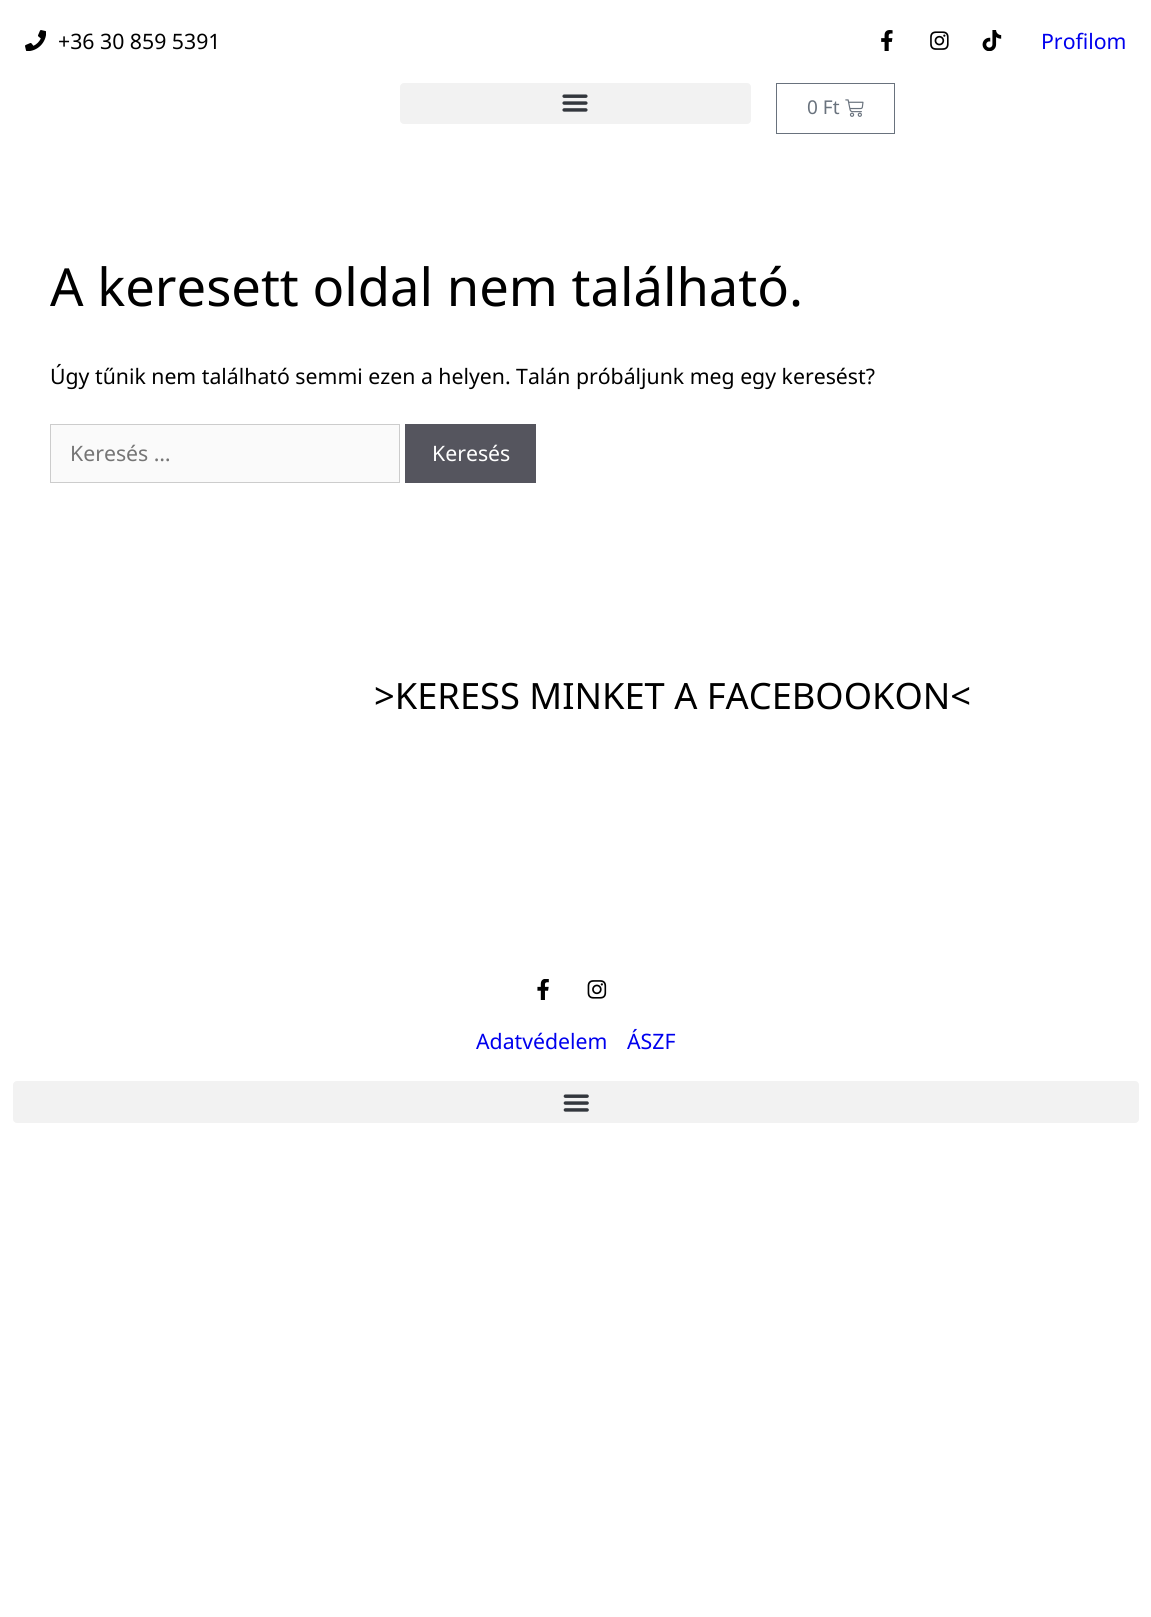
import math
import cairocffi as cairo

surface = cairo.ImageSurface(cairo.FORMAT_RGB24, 1151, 1617)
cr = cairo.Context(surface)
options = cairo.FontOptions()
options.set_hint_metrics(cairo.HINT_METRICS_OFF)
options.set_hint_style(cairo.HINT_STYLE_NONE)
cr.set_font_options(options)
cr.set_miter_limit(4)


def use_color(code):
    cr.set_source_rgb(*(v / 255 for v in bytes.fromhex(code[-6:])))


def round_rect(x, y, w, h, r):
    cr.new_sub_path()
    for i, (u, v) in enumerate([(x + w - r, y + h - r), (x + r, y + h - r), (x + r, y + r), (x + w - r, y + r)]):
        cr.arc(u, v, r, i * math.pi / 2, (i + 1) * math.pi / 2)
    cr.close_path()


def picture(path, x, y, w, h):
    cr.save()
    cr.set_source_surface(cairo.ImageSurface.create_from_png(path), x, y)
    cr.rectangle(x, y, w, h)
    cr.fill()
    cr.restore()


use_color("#ffffff")
cr.paint()
picture("img1.png", 25, 30, 21, 21)
cr.select_font_face("Noto Sans")
cr.set_font_size(21.25)
use_color("#000000")
cr.move_to(58, 49)
cr.show_text("+36 30 859 5391")
picture("img2.png", 881, 30, 12, 21)
picture("img3.png", 930, 31, 19, 19)
picture("img4.png", 982, 30, 20, 21)
use_color("#0000ee")
cr.move_to(1041, 49)
cr.show_text("Profilom")
use_color("#f2f2f2")
round_rect(400, 83, 351, 41, 4)
cr.fill()
picture("img5.png", 562, 94, 26, 18)
cr.rectangle(776.5, 83.5, 118, 50)
use_color("#69727d")
cr.set_line_width(1)
cr.stroke()
cr.set_font_size(19)
cr.move_to(807, 114)
cr.show_text("0 Ft")
picture("img6.png", 845, 99, 19, 18)
cr.set_font_size(52.5)
use_color("#000000")
cr.move_to(50, 306)
cr.show_text("A keresett oldal nem található.")
cr.set_font_size(21.25)
cr.move_to(50, 384)
cr.show_text("Úgy tűnik nem található semmi ezen a helyen. Talán próbáljunk meg egy keresést?")
use_color("#fafafa")
cr.rectangle(50.5, 424.5, 349, 58)
cr.fill_preserve()
use_color("#cccccc")
cr.stroke()
use_color("#757575")
cr.move_to(70, 461)
cr.show_text("Keresés …")
use_color("#55555e")
cr.rectangle(405, 424, 131, 59)
cr.fill()
use_color("#ffffff")
cr.move_to(432, 461)
cr.show_text("Keresés")
cr.set_font_size(36.25)
use_color("#000000")
cr.move_to(374, 709)
cr.show_text(">KERESS MINKET A FACEBOOKON<")
picture("img7.png", 537, 979, 12, 21)
picture("img8.png", 587, 980, 20, 19)
cr.set_font_size(21.25)
use_color("#0000ee")
cr.move_to(476, 1049)
cr.show_text("Adatvédelem")
cr.move_to(627, 1049)
cr.show_text("ÁSZF")
use_color("#f2f2f2")
round_rect(13, 1081, 1126, 42, 4)
cr.fill()
picture("img9.png", 563, 1094, 26, 18)
surface.write_to_png("result.png")
